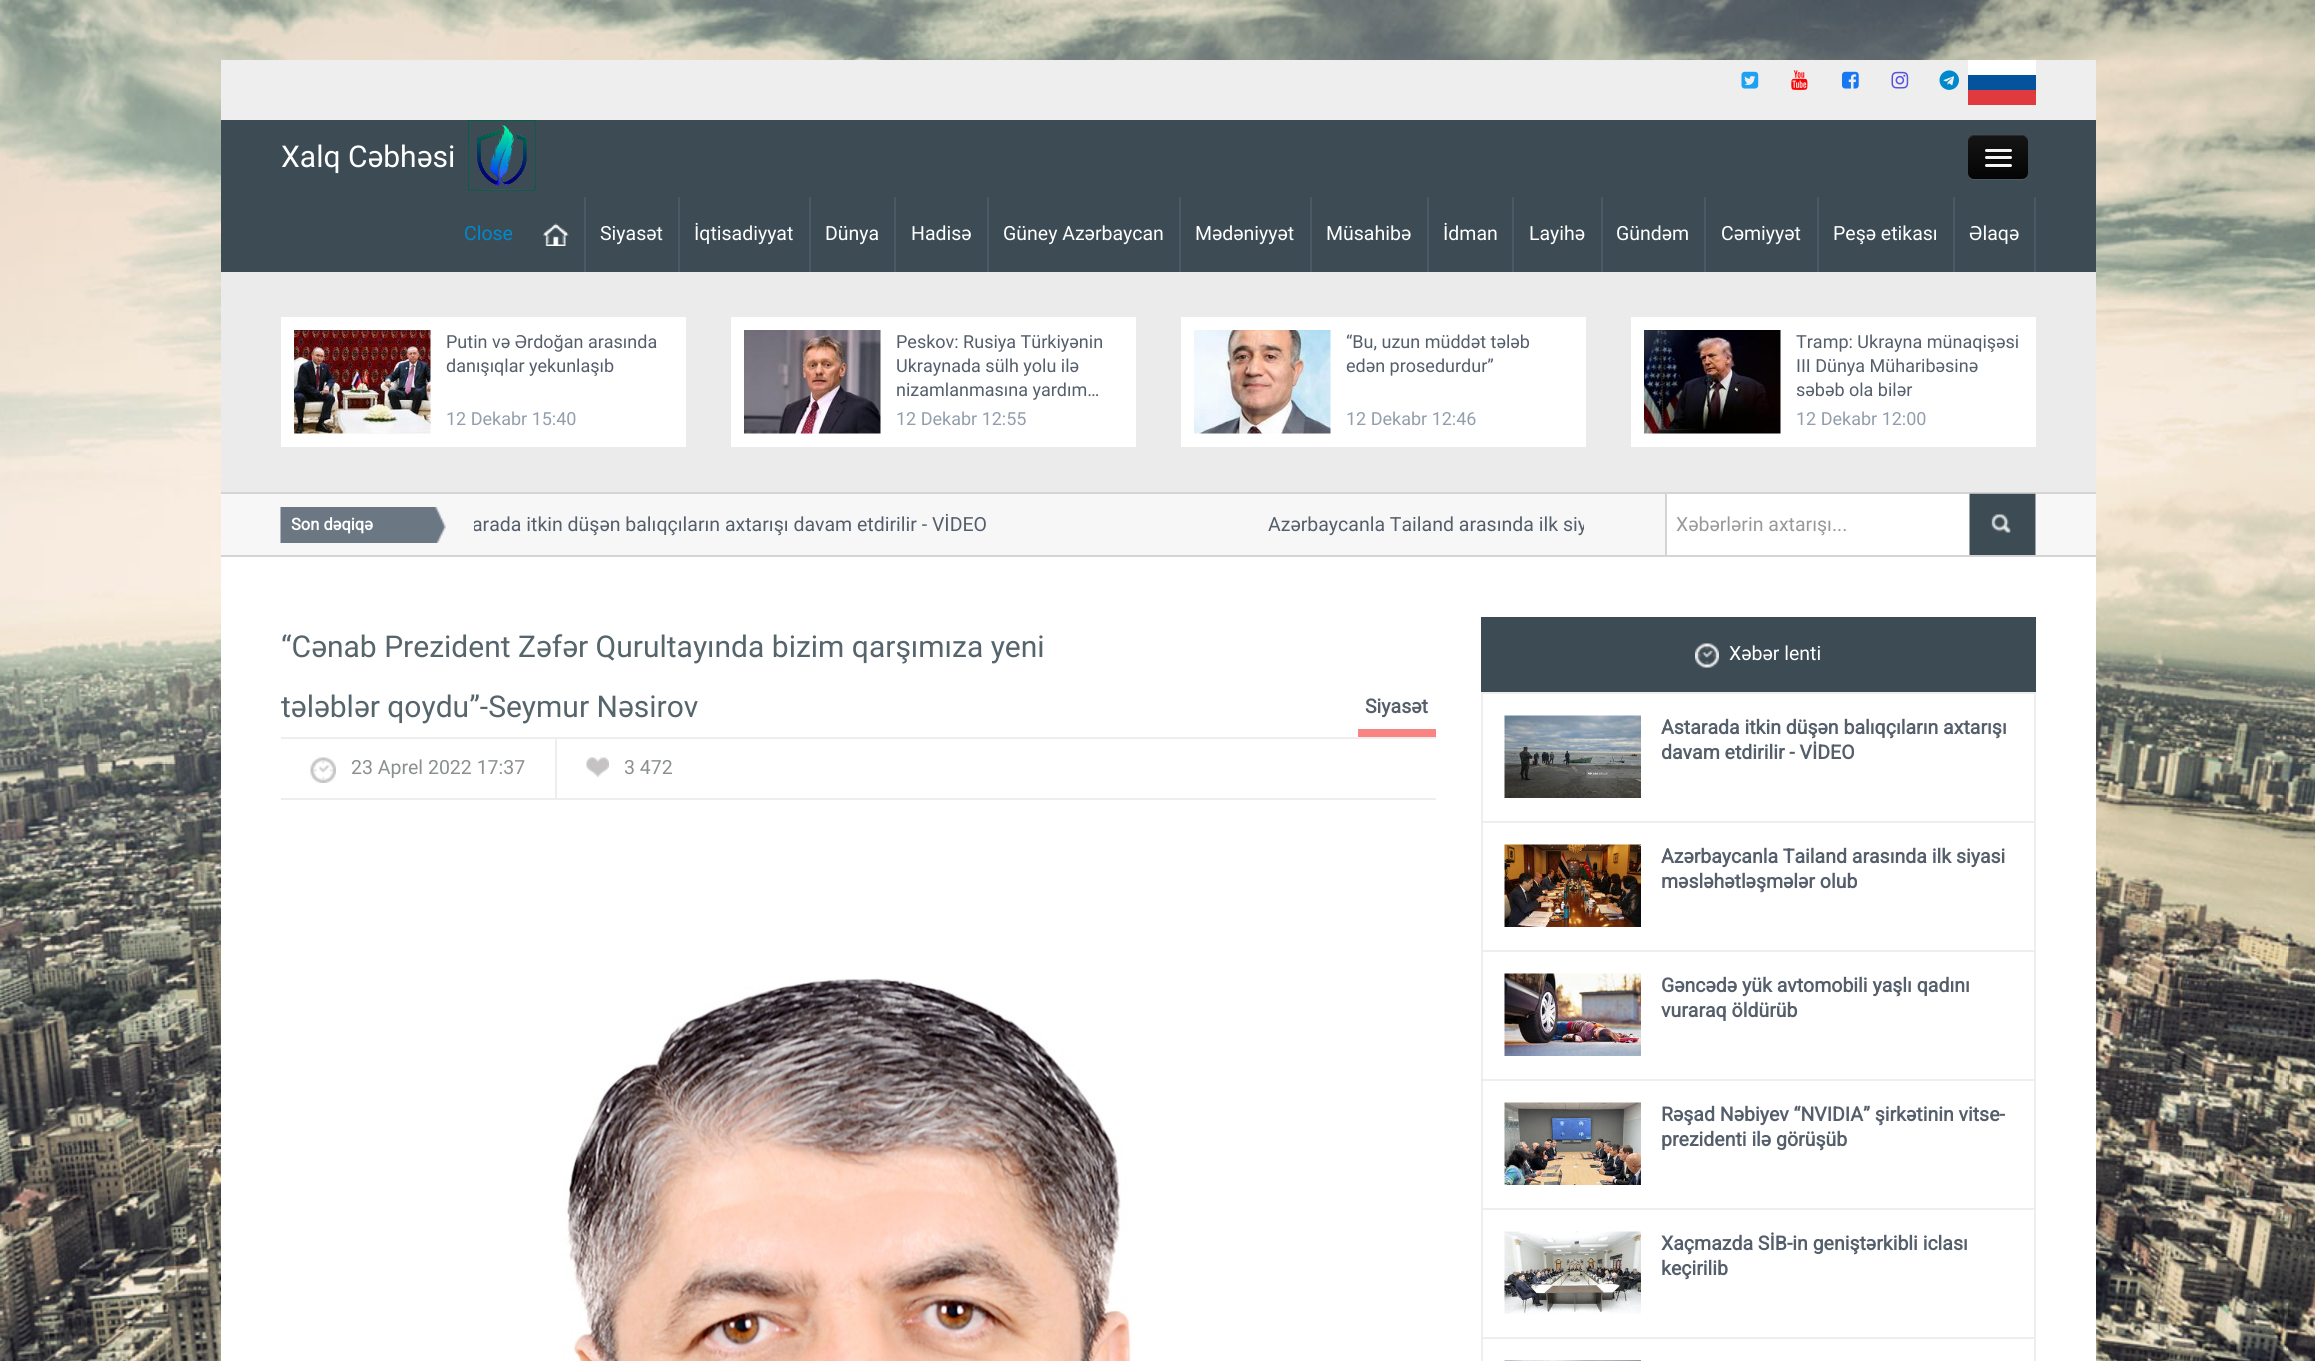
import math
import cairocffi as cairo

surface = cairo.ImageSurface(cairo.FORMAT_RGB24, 2315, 1361)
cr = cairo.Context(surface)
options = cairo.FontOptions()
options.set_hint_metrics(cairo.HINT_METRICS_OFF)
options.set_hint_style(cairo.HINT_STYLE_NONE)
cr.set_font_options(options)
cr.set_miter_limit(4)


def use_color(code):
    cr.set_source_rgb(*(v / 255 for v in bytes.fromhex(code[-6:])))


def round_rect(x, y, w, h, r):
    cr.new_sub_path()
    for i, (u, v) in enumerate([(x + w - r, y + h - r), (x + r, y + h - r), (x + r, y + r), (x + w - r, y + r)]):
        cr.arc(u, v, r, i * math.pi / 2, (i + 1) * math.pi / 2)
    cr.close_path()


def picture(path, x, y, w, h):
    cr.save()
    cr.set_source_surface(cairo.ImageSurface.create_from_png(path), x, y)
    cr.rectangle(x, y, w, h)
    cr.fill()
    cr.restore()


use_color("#ffffff")
cr.paint()
picture("img1.png", 0, 0, 2315, 1361)
use_color("#eeeeee")
cr.rectangle(221, 60, 1875, 60)
cr.fill()
picture("img2.png", 1741, 71, 18, 18)
picture("img3.png", 1791, 70, 17, 20)
picture("img4.png", 1842, 71, 17, 18)
picture("img5.png", 1891, 71, 18, 18)
picture("img6.png", 1939, 70, 20, 20)
use_color("#ffffff")
cr.rectangle(1968, 60, 68, 15)
cr.fill()
use_color("#05539d")
cr.rectangle(1968, 75, 68, 15)
cr.fill()
use_color("#df3a3d")
cr.rectangle(1968, 90, 68, 15)
cr.fill()
use_color("#3d4c54")
cr.rectangle(221, 120, 1875, 152)
cr.fill()
cr.select_font_face("Roboto")
cr.set_font_size(30)
use_color("#ffffff")
cr.move_to(281, 167)
cr.show_text("Xalq Cəbhəsi")
picture("img7.png", 468, 120, 68, 71)
use_color("#4c5961")
cr.new_path()
cr.move_to(1968, 172)
cr.curve_to(1968, 182, 1975, 180, 1982, 180)
cr.line_to(2014, 180)
cr.curve_to(2021, 180, 2028, 182, 2028, 172)
cr.curve_to(2028, 176, 2025, 178, 2022, 178)
cr.line_to(1974, 178)
cr.curve_to(1971, 178, 1968, 176, 1968, 172)
cr.close_path()
cr.fill()
gradient = cairo.LinearGradient(1998, 135, 1998, 179)
gradient.add_color_stop_rgba(0, 0.082, 0.082, 0.082, 1)
gradient.add_color_stop_rgba(1, 0.016, 0.016, 0.016, 1)
cr.set_source(gradient)
round_rect(1968, 135, 60, 44, 6)
cr.fill()
cr.set_source_rgba(1, 1, 1, 0.1)
cr.new_path()
cr.move_to(1974, 136)
cr.line_to(2022, 136)
cr.curve_to(2025, 136, 2028, 139, 2028, 142)
cr.curve_to(2028, 133, 2020, 135, 2014, 135)
cr.line_to(1982, 135)
cr.curve_to(1976, 135, 1968, 133, 1968, 142)
cr.curve_to(1968, 139, 1971, 136, 1974, 136)
cr.close_path()
cr.fill()
use_color("#0b0b0b")
cr.new_path()
cr.move_to(1985, 151)
cr.curve_to(1984.5, 154, 1990, 153, 1990.5, 153)
cr.line_to(2010.5, 153)
cr.curve_to(2012, 153, 2012.5, 151, 2011.5, 150.5)
cr.line_to(2010.5, 151.5)
cr.curve_to(2009, 152, 1985.5, 151.5, 1985, 151)
cr.close_path()
cr.fill()
use_color("#f5f5f5")
round_rect(1985, 149, 27, 3, 1.5)
cr.fill()
use_color("#090909")
cr.new_path()
cr.move_to(1985, 159)
cr.curve_to(1983.5, 162, 1990.5, 161, 1990.5, 161)
cr.line_to(2011, 161)
cr.curve_to(2012, 160.5, 2012.5, 159, 2011.5, 158)
cr.line_to(2010, 159)
cr.curve_to(2008, 159.5, 1986, 159.5, 1985, 159)
cr.close_path()
cr.fill()
use_color("#f5f5f5")
round_rect(1985, 156, 27, 3, 1.5)
cr.fill()
use_color("#060606")
cr.new_path()
cr.move_to(1985, 166)
cr.curve_to(1984.5, 169, 1990, 168, 1990.5, 168)
cr.line_to(2010.5, 168)
cr.curve_to(2012, 168, 2012.5, 166, 2011.5, 165.5)
cr.line_to(2010.5, 166.5)
cr.curve_to(2009, 167, 1985.5, 166.5, 1985, 166)
cr.close_path()
cr.fill()
use_color("#f5f5f5")
round_rect(1985, 164, 27, 3, 1.5)
cr.fill()
cr.set_font_size(19.5)
use_color("#0088cc")
cr.move_to(464, 240)
cr.show_text("Close")
use_color("#485a63")
cr.rectangle(584, 197, 2, 75)
cr.fill()
picture("img8.png", 543, 223, 26, 23)
cr.rectangle(678, 197, 2, 75)
cr.fill()
use_color("#ffffff")
cr.move_to(600, 240)
cr.show_text("Siyasət")
use_color("#485a63")
cr.rectangle(809, 197, 2, 75)
cr.fill()
use_color("#ffffff")
cr.move_to(694, 240)
cr.show_text("İqtisadiyyat")
use_color("#485a63")
cr.rectangle(894, 197, 2, 75)
cr.fill()
use_color("#ffffff")
cr.move_to(825, 240)
cr.show_text("Dünya")
use_color("#485a63")
cr.rectangle(987, 197, 2, 75)
cr.fill()
use_color("#ffffff")
cr.move_to(911, 240)
cr.show_text("Hadisə")
use_color("#485a63")
cr.rectangle(1179, 197, 2, 75)
cr.fill()
use_color("#ffffff")
cr.move_to(1003, 240)
cr.show_text("Güney Azərbaycan")
use_color("#485a63")
cr.rectangle(1310, 197, 2, 75)
cr.fill()
use_color("#ffffff")
cr.move_to(1195, 240)
cr.show_text("Mədəniyyət")
use_color("#485a63")
cr.rectangle(1427, 197, 2, 75)
cr.fill()
use_color("#ffffff")
cr.move_to(1326, 240)
cr.show_text("Müsahibə")
use_color("#485a63")
cr.rectangle(1512, 197, 2, 75)
cr.fill()
use_color("#ffffff")
cr.move_to(1443, 240)
cr.show_text("İdman")
use_color("#485a63")
cr.rectangle(1601, 197, 2, 75)
cr.fill()
use_color("#ffffff")
cr.move_to(1529, 240)
cr.show_text("Layihə")
use_color("#485a63")
cr.rectangle(1704, 197, 2, 75)
cr.fill()
use_color("#ffffff")
cr.move_to(1616, 240)
cr.show_text("Gündəm")
use_color("#485a63")
cr.rectangle(1817, 197, 2, 75)
cr.fill()
use_color("#ffffff")
cr.move_to(1721, 240)
cr.show_text("Cəmiyyət")
use_color("#485a63")
cr.rectangle(1953, 197, 2, 75)
cr.fill()
use_color("#ffffff")
cr.move_to(1833, 240)
cr.show_text("Peşə etikası")
use_color("#485a63")
cr.rectangle(2034, 197, 2, 75)
cr.fill()
use_color("#ffffff")
cr.move_to(1969, 240)
cr.show_text("Əlaqə")
use_color("#ebebeb")
cr.rectangle(221, 272, 1875, 220)
cr.fill()
use_color("#ffffff")
cr.rectangle(281, 317, 405, 130)
cr.fill()
picture("img9.png", 294, 330, 137, 104)
cr.set_font_size(18)
use_color("#555e6b")
cr.move_to(446, 348)
cr.show_text("Putin və Ərdoğan arasında")
cr.move_to(446, 372)
cr.show_text("danışıqlar yekunlaşıb")
use_color("#939ead")
cr.move_to(446, 425)
cr.show_text("12 Dekabr 15:40")
use_color("#ffffff")
cr.rectangle(731, 317, 405, 130)
cr.fill()
picture("img10.png", 744, 330, 137, 104)
use_color("#555e6b")
cr.move_to(896, 348)
cr.show_text("Peskov: Rusiya Türkiyənin")
cr.move_to(896, 372)
cr.show_text("Ukraynada sülh yolu ilə")
cr.move_to(896, 396)
cr.show_text("nizamlanmasına yardım…")
use_color("#939ead")
cr.move_to(896, 425)
cr.show_text("12 Dekabr 12:55")
use_color("#ffffff")
cr.rectangle(1181, 317, 405, 130)
cr.fill()
picture("img11.png", 1194, 330, 137, 104)
use_color("#555e6b")
cr.move_to(1346, 348)
cr.show_text("“Bu, uzun müddət tələb")
cr.move_to(1346, 372)
cr.show_text("edən prosedurdur”")
use_color("#939ead")
cr.move_to(1346, 425)
cr.show_text("12 Dekabr 12:46")
use_color("#ffffff")
cr.rectangle(1631, 317, 405, 130)
cr.fill()
picture("img12.png", 1644, 330, 137, 104)
use_color("#555e6b")
cr.move_to(1796, 348)
cr.show_text("Tramp: Ukrayna münaqişəsi")
cr.move_to(1796, 372)
cr.show_text("III Dünya Müharibəsinə")
cr.move_to(1796, 396)
cr.show_text("səbəb ola bilər")
use_color("#939ead")
cr.move_to(1796, 425)
cr.show_text("12 Dekabr 12:00")
use_color("#f7f7f7")
cr.rectangle(221, 494, 1875, 61)
cr.fill()
use_color("#d4d4d4")
cr.rectangle(221, 492, 1875, 2)
cr.fill()
cr.rectangle(221, 555, 1875, 2)
cr.fill()
picture("img13.png", 280, 507, 166, 36)
cr.select_font_face("Roboto", cairo.FONT_SLANT_NORMAL, cairo.FONT_WEIGHT_BOLD)
cr.set_font_size(16.5)
use_color("#ffffff")
cr.move_to(291, 530)
cr.show_text("Son dəqiqə")
cr.save()
cr.rectangle(474, 507, 1110, 33)
cr.clip()
cr.select_font_face("Roboto")
cr.set_font_size(19.5)
use_color("#555e6b")
cr.move_to(472, 531)
cr.show_text("arada itkin düşən balıqçıların axtarışı davam etdirilir - VİDEO")
cr.move_to(1268, 531)
cr.show_text("Azərbaycanla Tailand arasında ilk siy")
cr.restore()
cr.rectangle(1667, 494, 369, 61)
cr.fill()
use_color("#d4d4d4")
cr.rectangle(1665, 494, 2, 61)
cr.fill()
cr.select_font_face("Roboto")
cr.set_font_size(19.5)
use_color("#999999")
cr.move_to(1676, 531)
cr.show_text("Xəbərlərin axtarışı...")
picture("img14.png", 1969, 493, 67, 62)
use_color("#ffffff")
cr.rectangle(221, 557, 1875, 804)
cr.fill()
use_color("#eeeeee")
cr.rectangle(555, 738, 2, 60)
cr.fill()
cr.rectangle(281, 737, 1155, 2)
cr.fill()
cr.set_font_size(30)
use_color("#55656b")
cr.move_to(281, 657)
cr.show_text("“Cənab Prezident Zəfər Qurultayında bizim qarşımıza yeni")
cr.move_to(281, 717)
cr.show_text("tələblər qoydu”-Seymur Nəsirov")
use_color("#fa8484")
cr.rectangle(1358, 729, 78, 8)
cr.fill()
cr.select_font_face("Roboto", cairo.FONT_SLANT_NORMAL, cairo.FONT_WEIGHT_BOLD)
cr.set_font_size(19.5)
use_color("#555e6b")
cr.move_to(1365, 713)
cr.show_text("Siyasət")
use_color("#eeeeee")
cr.rectangle(281, 798, 1155, 2)
cr.fill()
picture("img15.png", 310, 757, 26, 26)
cr.select_font_face("Roboto")
use_color("#8a8f90")
cr.move_to(351, 774)
cr.show_text("23 Aprel 2022 17:37")
picture("img16.png", 586, 757, 23, 20)
cr.move_to(624, 774)
cr.show_text("3 472")
picture("img17.png", 563, 978, 571, 383)
use_color("#3d4c54")
cr.rectangle(1481, 617, 555, 75)
cr.fill()
picture("img18.png", 1695, 643, 24, 25)
use_color("#ffffff")
cr.move_to(1729, 660)
cr.show_text("Xəbər lenti")
cr.rectangle(1482, 693, 553, 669)
use_color("#eeeeee")
cr.stroke()
cr.rectangle(1482, 821, 552, 2)
cr.fill()
picture("img19.png", 1504, 715, 137, 83)
cr.select_font_face("Roboto", cairo.FONT_SLANT_NORMAL, cairo.FONT_WEIGHT_BOLD)
use_color("#555e6b")
cr.move_to(1661, 734)
cr.show_text("Astarada itkin düşən balıqçıların axtarışı")
cr.move_to(1661, 759)
cr.show_text("davam etdirilir - VİDEO")
use_color("#eeeeee")
cr.rectangle(1482, 950, 552, 2)
cr.fill()
picture("img20.png", 1504, 844, 137, 83)
use_color("#555e6b")
cr.move_to(1661, 863)
cr.show_text("Azərbaycanla Tailand arasında ilk siyasi")
cr.move_to(1661, 888)
cr.show_text("məsləhətləşmələr olub")
use_color("#eeeeee")
cr.rectangle(1482, 1079, 552, 2)
cr.fill()
picture("img21.png", 1504, 973, 137, 83)
use_color("#555e6b")
cr.move_to(1661, 992)
cr.show_text("Gəncədə yük avtomobili yaşlı qadını")
cr.move_to(1661, 1017)
cr.show_text("vuraraq öldürüb")
use_color("#eeeeee")
cr.rectangle(1482, 1208, 552, 2)
cr.fill()
picture("img22.png", 1504, 1102, 137, 83)
use_color("#555e6b")
cr.move_to(1661, 1121)
cr.show_text("Rəşad Nəbiyev “NVIDIA” şirkətinin vitse-")
cr.move_to(1661, 1146)
cr.show_text("prezidenti ilə görüşüb")
use_color("#eeeeee")
cr.rectangle(1482, 1337, 552, 2)
cr.fill()
picture("img23.png", 1504, 1231, 137, 83)
use_color("#555e6b")
cr.move_to(1661, 1250)
cr.show_text("Xaçmazda SİB-in geniştərkibli iclası")
cr.move_to(1661, 1275)
cr.show_text("keçirilib")
picture("img24.png", 1504, 1360, 137, 1)
surface.write_to_png("result.png")
